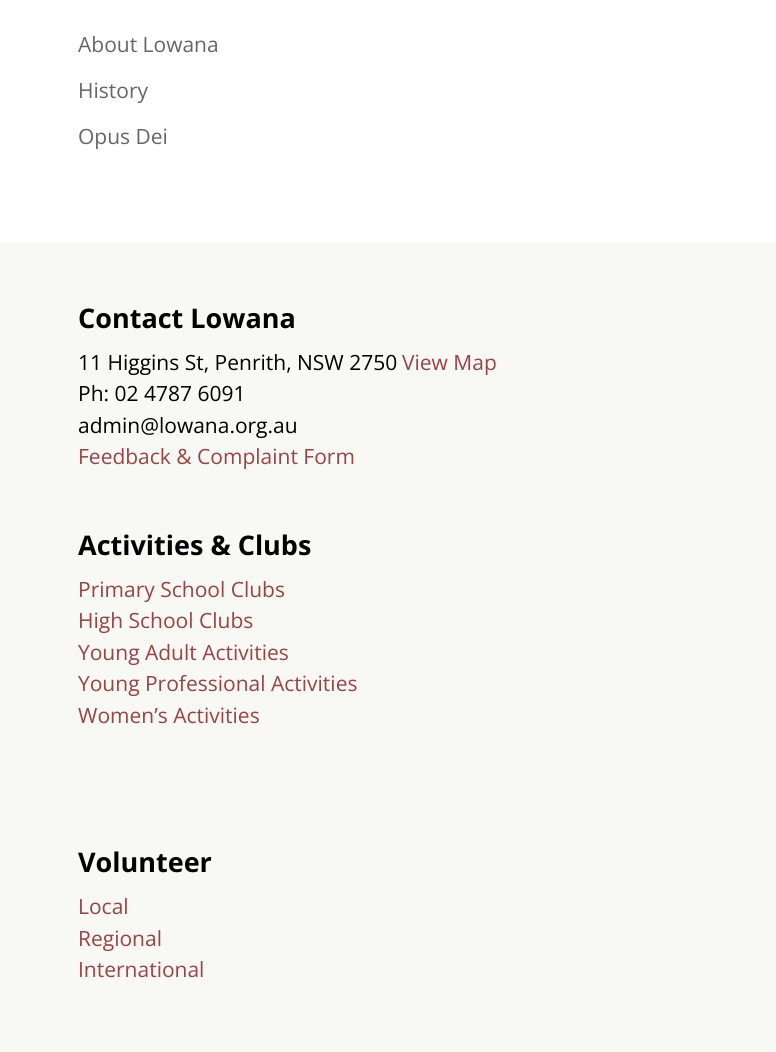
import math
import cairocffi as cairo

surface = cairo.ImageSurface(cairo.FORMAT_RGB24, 776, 1052)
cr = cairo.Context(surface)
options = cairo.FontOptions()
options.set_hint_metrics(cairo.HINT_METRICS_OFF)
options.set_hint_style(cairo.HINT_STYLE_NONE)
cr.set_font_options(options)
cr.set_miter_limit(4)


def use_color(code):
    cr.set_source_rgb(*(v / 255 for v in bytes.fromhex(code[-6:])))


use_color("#ffffff")
cr.paint()
cr.select_font_face("Open Sans")
cr.set_font_size(21)
use_color("#666666")
cr.move_to(78, 52)
cr.show_text("About Lowana")
cr.move_to(78, 98)
cr.show_text("History")
cr.move_to(78, 144)
cr.show_text("Opus Dei")
use_color("#f8f8f4")
cr.rectangle(0, 242, 776, 810)
cr.fill()
cr.select_font_face("Open Sans", cairo.FONT_SLANT_NORMAL, cairo.FONT_WEIGHT_BOLD)
cr.set_font_size(27)
use_color("#000000")
cr.move_to(78, 328)
cr.show_text("Contact Lowana")
cr.select_font_face("Open Sans")
cr.set_font_size(21)
cr.move_to(78, 370)
cr.show_text("11 Higgins St, Penrith, NSW 2750")
use_color("#9a4343")
cr.move_to(402, 370)
cr.show_text("View Map")
use_color("#000000")
cr.move_to(78, 401)
cr.show_text("Ph: 02 4787 6091")
cr.move_to(78, 433)
cr.show_text("admin@lowana.org.au")
use_color("#9a4343")
cr.move_to(78, 464)
cr.show_text("Feedback & Complaint Form")
cr.select_font_face("Open Sans", cairo.FONT_SLANT_NORMAL, cairo.FONT_WEIGHT_BOLD)
cr.set_font_size(27)
use_color("#000000")
cr.move_to(78, 555)
cr.show_text("Activities & Clubs")
cr.select_font_face("Open Sans")
cr.set_font_size(21)
use_color("#9a4343")
cr.move_to(78, 597)
cr.show_text("Primary School Clubs")
cr.move_to(78, 628)
cr.show_text("High School Clubs")
cr.move_to(78, 660)
cr.show_text("Young Adult Activities")
cr.move_to(78, 691)
cr.show_text("Young Professional Activities")
cr.move_to(78, 723)
cr.show_text("Women’s Activities")
cr.select_font_face("Open Sans", cairo.FONT_SLANT_NORMAL, cairo.FONT_WEIGHT_BOLD)
cr.set_font_size(27)
use_color("#000000")
cr.move_to(78, 872)
cr.show_text("Volunteer")
cr.select_font_face("Open Sans")
cr.set_font_size(21)
use_color("#9a4343")
cr.move_to(78, 914)
cr.show_text("Local")
cr.move_to(78, 946)
cr.show_text("Regional")
cr.move_to(78, 977)
cr.show_text("International")
surface.write_to_png("result.png")
